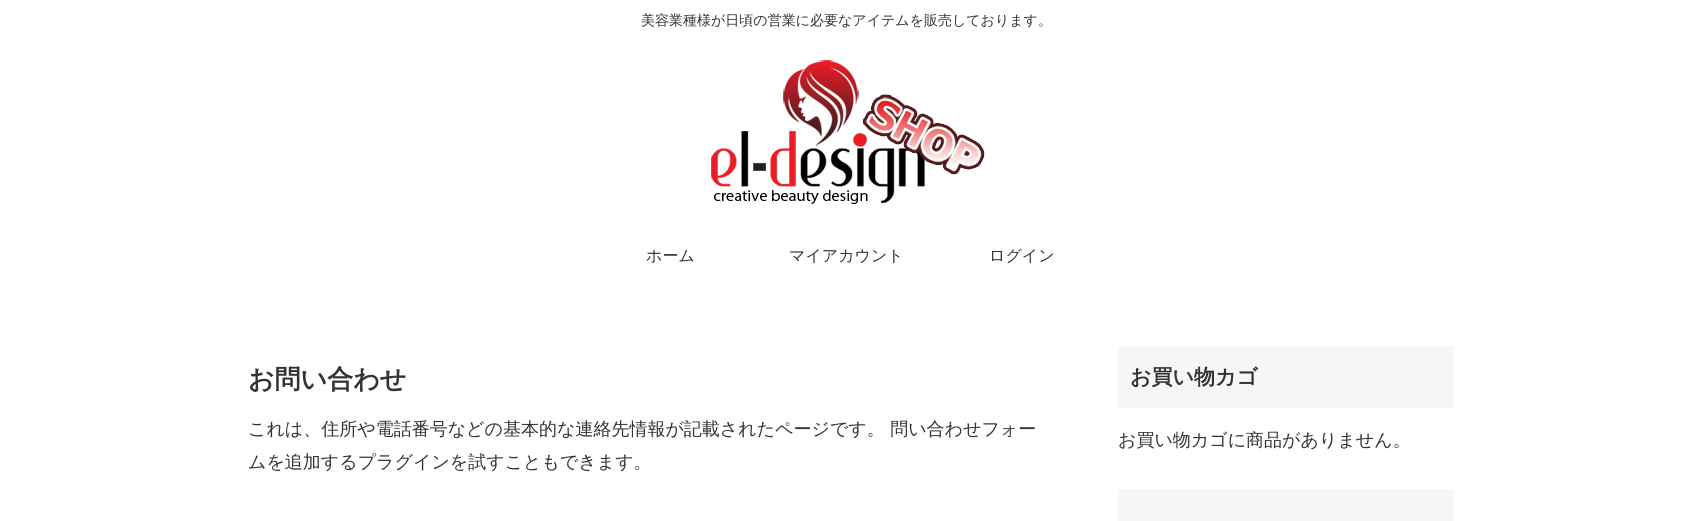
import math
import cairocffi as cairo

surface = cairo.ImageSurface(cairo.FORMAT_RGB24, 1692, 521)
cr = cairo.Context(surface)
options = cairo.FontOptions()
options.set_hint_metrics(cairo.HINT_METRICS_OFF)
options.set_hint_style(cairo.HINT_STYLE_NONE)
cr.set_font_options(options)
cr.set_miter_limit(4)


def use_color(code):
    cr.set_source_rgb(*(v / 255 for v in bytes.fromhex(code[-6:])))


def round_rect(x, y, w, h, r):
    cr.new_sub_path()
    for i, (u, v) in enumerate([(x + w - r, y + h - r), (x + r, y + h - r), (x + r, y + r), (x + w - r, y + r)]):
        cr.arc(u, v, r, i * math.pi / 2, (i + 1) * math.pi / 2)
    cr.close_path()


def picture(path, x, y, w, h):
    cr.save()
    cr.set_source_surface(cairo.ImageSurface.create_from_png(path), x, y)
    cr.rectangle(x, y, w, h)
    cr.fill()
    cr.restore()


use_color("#ffffff")
cr.paint()
cr.select_font_face("WenQuanYi Zen Hei Medium")
cr.set_font_size(14)
use_color("#333333")
cr.move_to(641, 25)
cr.show_text("美容業種様が日頃の営業に必要なアイテムを販売しております。")
picture("img1.png", 711, 60, 274, 144)
cr.set_font_size(16)
cr.move_to(646, 261)
cr.show_text("ホーム")
cr.move_to(789, 261)
cr.show_text("マイアカウント")
cr.move_to(989, 261)
cr.show_text("ログイン")
cr.select_font_face("WenQuanYi Zen Hei", cairo.FONT_SLANT_NORMAL, cairo.FONT_WEIGHT_BOLD)
cr.set_font_size(26)
cr.move_to(248, 388)
cr.show_text("お問い合わせ")
cr.select_font_face("WenQuanYi Zen Hei Medium")
cr.set_font_size(18)
cr.move_to(248, 435)
cr.show_text("これは、住所や電話番号などの基本的な連絡先情報が記載されたページです。 問い合わせフォー")
cr.move_to(248, 468)
cr.show_text("ムを追加するプラグインを試すこともできます。")
use_color("#f5f6f7")
round_rect(1118, 346, 336, 62, 2)
cr.fill()
cr.select_font_face("WenQuanYi Zen Hei", cairo.FONT_SLANT_NORMAL, cairo.FONT_WEIGHT_BOLD)
cr.set_font_size(21)
use_color("#333333")
cr.move_to(1130, 384)
cr.show_text("お買い物カゴ")
cr.select_font_face("WenQuanYi Zen Hei Medium")
cr.set_font_size(18)
cr.move_to(1118, 446)
cr.show_text("お買い物カゴに商品がありません。")
use_color("#f5f6f7")
round_rect(1118, 489, 336, 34, 2)
cr.fill()
surface.write_to_png("result.png")
